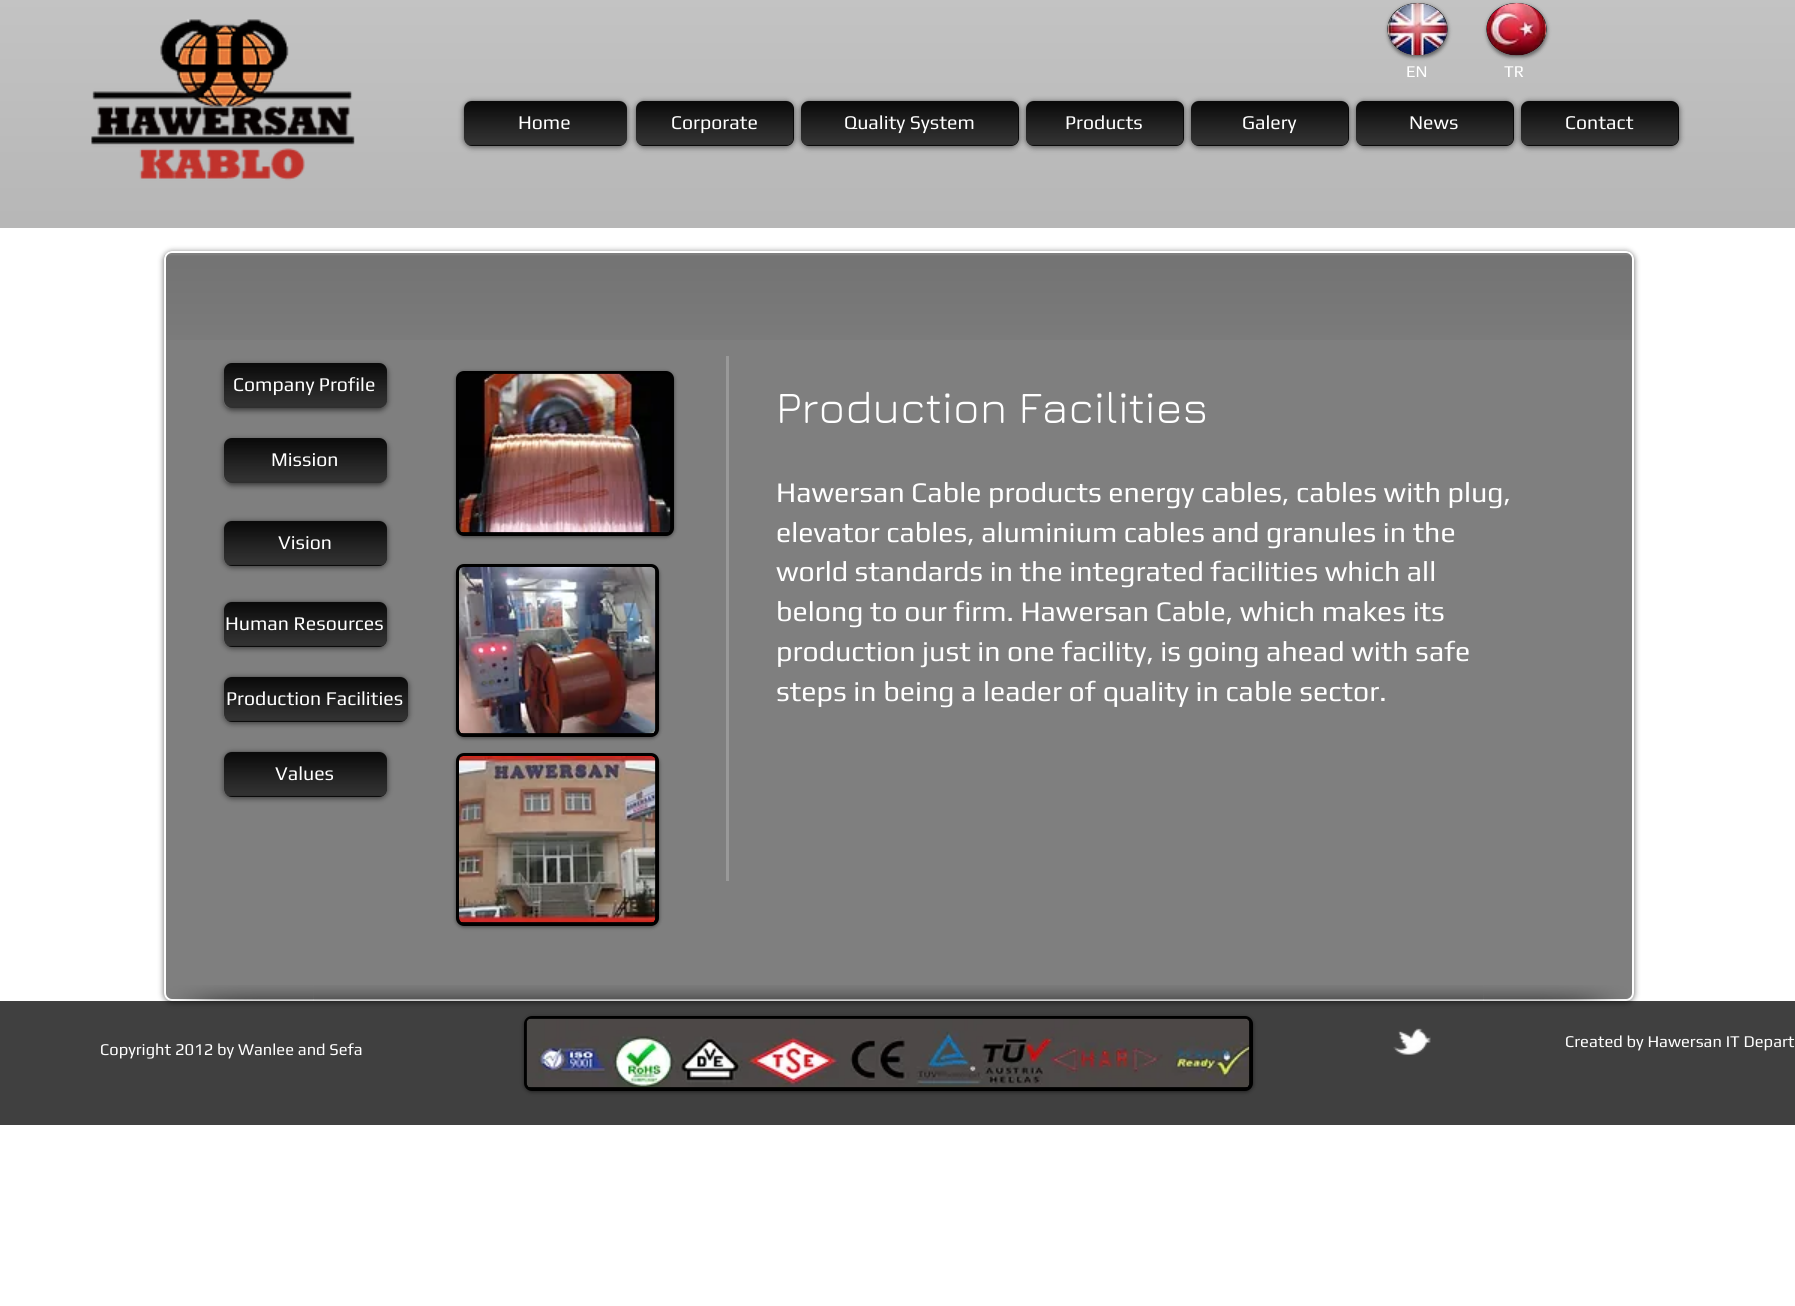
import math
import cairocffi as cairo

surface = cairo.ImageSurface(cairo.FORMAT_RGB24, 1795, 1306)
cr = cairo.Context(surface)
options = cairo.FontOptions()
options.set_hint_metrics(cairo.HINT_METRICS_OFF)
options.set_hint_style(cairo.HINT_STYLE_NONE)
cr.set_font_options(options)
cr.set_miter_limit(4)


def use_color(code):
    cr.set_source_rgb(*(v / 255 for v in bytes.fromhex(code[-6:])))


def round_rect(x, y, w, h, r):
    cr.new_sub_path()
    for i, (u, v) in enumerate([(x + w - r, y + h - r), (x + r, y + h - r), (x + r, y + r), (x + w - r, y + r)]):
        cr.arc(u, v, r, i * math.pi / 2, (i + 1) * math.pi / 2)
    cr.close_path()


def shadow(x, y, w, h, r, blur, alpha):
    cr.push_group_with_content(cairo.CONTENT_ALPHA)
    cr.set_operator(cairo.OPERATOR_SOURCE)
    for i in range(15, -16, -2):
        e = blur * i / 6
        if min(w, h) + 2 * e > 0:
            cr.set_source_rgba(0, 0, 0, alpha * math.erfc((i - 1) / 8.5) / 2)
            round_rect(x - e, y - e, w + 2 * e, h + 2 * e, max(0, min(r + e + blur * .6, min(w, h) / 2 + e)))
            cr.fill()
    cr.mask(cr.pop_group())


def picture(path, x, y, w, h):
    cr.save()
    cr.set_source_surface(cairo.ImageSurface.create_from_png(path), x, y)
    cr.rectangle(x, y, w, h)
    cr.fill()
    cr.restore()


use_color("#ffffff")
cr.paint()
use_color("#aeaeae")
cr.rectangle(0, 0, 1795, 228)
cr.fill()
picture("img1.png", 0, 0, 1795, 228)
picture("img2.png", 91, 19, 264, 162)
use_color("#000000")
shadow(1388, 5, 60, 52, 26, 2, 0.5)
use_color("#000000")
cr.new_path()
cr.move_to(1417.5, 3)
cr.curve_to(1434, 3, 1447.5, 14.5, 1447.5, 29)
cr.curve_to(1447.5, 43.5, 1434, 55, 1417.5, 55)
cr.curve_to(1401, 55, 1387.5, 43.5, 1387.5, 29)
cr.curve_to(1387.5, 14.5, 1401, 3, 1417.5, 3)
cr.close_path()
cr.fill()
picture("img3.png", 1387, 3, 61, 53)
use_color("#000000")
shadow(1487, 5, 60, 52, 26, 2, 0.5)
use_color("#000000")
cr.new_path()
cr.move_to(1516.5, 3)
cr.curve_to(1533, 3, 1546.5, 14.5, 1546.5, 29)
cr.curve_to(1546.5, 43.5, 1533, 55, 1516.5, 55)
cr.curve_to(1500, 55, 1486.5, 43.5, 1486.5, 29)
cr.curve_to(1486.5, 14.5, 1500, 3, 1516.5, 3)
cr.close_path()
cr.fill()
picture("img4.png", 1486, 3, 61, 53)
cr.select_font_face("Play")
cr.set_font_size(16.5)
use_color("#ffffff")
cr.move_to(1406, 77)
cr.show_text("EN")
cr.move_to(1504, 77)
cr.show_text("TR")
use_color("#000000")
shadow(464, 102, 163, 45, 8, 3, 0.6)
use_color("#000000")
round_rect(464, 101, 163, 45, 8)
cr.fill()
picture("img5.png", 463, 100, 164, 16)
picture("img6.png", 464, 101, 163, 45)
cr.set_font_size(19.5)
use_color("#ffffff")
cr.move_to(518, 129)
cr.show_text("Home")
use_color("#000000")
shadow(636, 102, 158, 45, 8, 3, 0.6)
use_color("#000000")
round_rect(636, 101, 158, 45, 8)
cr.fill()
picture("img7.png", 636, 100, 157, 7)
picture("img8.png", 636, 101, 158, 45)
use_color("#ffffff")
cr.move_to(671, 129)
cr.show_text("Corporate")
use_color("#000000")
shadow(801, 102, 218, 45, 8, 3, 0.6)
use_color("#000000")
round_rect(801, 101, 218, 45, 8)
cr.fill()
picture("img9.png", 801, 100, 217, 7)
picture("img10.png", 801, 101, 218, 45)
use_color("#ffffff")
cr.move_to(844, 129)
cr.show_text("Quality System")
use_color("#000000")
shadow(1026, 102, 158, 45, 8, 3, 0.6)
use_color("#000000")
round_rect(1026, 101, 158, 45, 8)
cr.fill()
picture("img11.png", 1026, 100, 157, 7)
picture("img12.png", 1026, 101, 158, 45)
use_color("#ffffff")
cr.move_to(1065, 129)
cr.show_text("Products")
use_color("#000000")
shadow(1191, 102, 158, 45, 8, 3, 0.6)
use_color("#000000")
round_rect(1191, 101, 158, 45, 8)
cr.fill()
picture("img13.png", 1191, 100, 157, 7)
picture("img14.png", 1191, 101, 158, 45)
use_color("#ffffff")
cr.move_to(1242, 129)
cr.show_text("Galery")
use_color("#000000")
shadow(1356, 102, 158, 45, 8, 3, 0.6)
use_color("#000000")
round_rect(1356, 101, 158, 45, 8)
cr.fill()
picture("img13.png", 1356, 100, 157, 7)
picture("img14.png", 1356, 101, 158, 45)
use_color("#ffffff")
cr.move_to(1409, 129)
cr.show_text("News")
use_color("#000000")
shadow(1521, 102, 158, 45, 8, 3, 0.6)
use_color("#000000")
round_rect(1521, 101, 158, 45, 8)
cr.fill()
picture("img15.png", 1521, 100, 157, 7)
picture("img16.png", 1521, 101, 158, 45)
use_color("#ffffff")
cr.move_to(1565, 129)
cr.show_text("Contact")
cr.save()
cr.set_fill_rule(cairo.FILL_RULE_EVEN_ODD)
cr.new_path()
cr.move_to(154, 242)
cr.line_to(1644, 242)
cr.line_to(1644, 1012)
cr.line_to(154, 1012)
cr.close_path()
cr.move_to(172, 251)
cr.line_to(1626, 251)
cr.curve_to(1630.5, 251, 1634, 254.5, 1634, 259)
cr.line_to(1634, 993)
cr.curve_to(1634, 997.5, 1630.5, 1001, 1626, 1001)
cr.line_to(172, 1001)
cr.curve_to(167.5, 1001, 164, 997.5, 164, 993)
cr.line_to(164, 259)
cr.curve_to(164, 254.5, 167.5, 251, 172, 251)
cr.close_path()
cr.clip()
use_color("#000000")
shadow(164, 252, 1470, 750, 8, 3, 0.6)
cr.restore()
cr.set_source_rgba(0, 0, 0, 0.5)
round_rect(164, 251, 1470, 750, 8)
cr.fill()
picture("img26.png", 164, 255, 1469, 85)
round_rect(165, 252, 1468, 748, 7)
use_color("#ffffff")
cr.stroke()
use_color("#000000")
shadow(224, 365, 163, 45, 8, 3, 0.6)
use_color("#000000")
round_rect(224, 363, 163, 45, 8)
cr.fill()
picture("img17.png", 223, 363, 164, 8)
picture("img18.png", 223, 363, 164, 45)
use_color("#ffffff")
cr.move_to(233, 391)
cr.show_text("Company Profile")
use_color("#000000")
shadow(456, 372, 218, 165, 8, 2, 0.5)
use_color("#000000")
round_rect(457.5, 372.5, 215, 162, 6.5)
cr.fill_preserve()
cr.set_line_width(3)
cr.stroke()
picture("img19.png", 459, 373, 212, 160)
use_color("#999999")
cr.rectangle(726, 356, 3, 525)
cr.fill()
use_color("#000000")
shadow(224, 440, 163, 45, 8, 3, 0.6)
use_color("#000000")
round_rect(224, 438, 163, 45, 8)
cr.fill()
picture("img17.png", 223, 438, 164, 8)
picture("img18.png", 223, 438, 164, 45)
use_color("#ffffff")
cr.move_to(271, 466)
cr.show_text("Mission")
cr.select_font_face("Jura")
cr.set_font_size(45)
cr.move_to(776, 423)
cr.show_text("Production Facilities")
cr.select_font_face("Play")
cr.set_font_size(28.5)
cr.move_to(776, 502)
cr.show_text("Hawersan Cable products energy cables, cables with plug,")
cr.move_to(776, 542)
cr.show_text("elevator cables, aluminium cables and granules in the")
cr.move_to(776, 581)
cr.show_text("world standards in the integrated facilities which all")
cr.move_to(776, 621)
cr.show_text("belong to our firm. Hawersan Cable, which makes its")
cr.move_to(776, 661)
cr.show_text("production just in one facility, is going ahead with safe")
cr.move_to(776, 701)
cr.show_text("steps in being a leader of quality in cable sector.")
use_color("#000000")
shadow(224, 522, 163, 45, 8, 3, 0.6)
use_color("#000000")
round_rect(224, 521, 163, 45, 8)
cr.fill()
picture("img20.png", 223, 520, 164, 9)
picture("img21.png", 223, 521, 164, 45)
cr.set_font_size(19.5)
use_color("#ffffff")
cr.move_to(278, 549)
cr.show_text("Vision")
use_color("#000000")
shadow(224, 603, 163, 45, 8, 3, 0.6)
use_color("#000000")
round_rect(224, 602, 163, 45, 8)
cr.fill()
picture("img20.png", 223, 601, 164, 9)
picture("img21.png", 223, 602, 164, 45)
use_color("#ffffff")
cr.move_to(225, 630)
cr.show_text("Human Resources")
use_color("#000000")
shadow(456, 566, 203, 172, 8, 2, 0.5)
use_color("#000000")
round_rect(457.5, 565.5, 200, 170, 6.5)
cr.fill_preserve()
cr.stroke()
picture("img22.png", 459, 567, 197, 167)
use_color("#000000")
shadow(224, 678, 184, 45, 8, 3, 0.6)
use_color("#000000")
round_rect(224, 677, 184, 45, 8)
cr.fill()
picture("img23.png", 223, 676, 185, 9)
picture("img24.png", 223, 677, 185, 45)
use_color("#ffffff")
cr.move_to(226, 705)
cr.show_text("Production Facilities")
use_color("#000000")
shadow(224, 753, 163, 45, 8, 3, 0.6)
use_color("#000000")
round_rect(224, 752, 163, 45, 8)
cr.fill()
picture("img20.png", 223, 751, 164, 9)
picture("img21.png", 223, 752, 164, 45)
use_color("#ffffff")
cr.move_to(275, 780)
cr.show_text("Values")
use_color("#000000")
shadow(456, 755, 203, 172, 8, 2, 0.5)
use_color("#000000")
round_rect(457.5, 754.5, 200, 170, 6.5)
cr.fill_preserve()
cr.stroke()
picture("img25.png", 459, 756, 197, 167)
cr.set_source_rgba(0, 0, 0, 0.75)
cr.rectangle(0, 1001, 1795, 124)
cr.fill()
picture("img27.png", 169, 985, 145, 16)
picture("img28.png", 313, 985, 1171, 16)
picture("img29.png", 1483, 985, 145, 16)
cr.set_font_size(16.5)
use_color("#ffffff")
cr.move_to(100, 1055)
cr.show_text("Copyright 2012 by Wanlee and Sefa")
use_color("#000000")
shadow(524, 1017, 729, 75, 8, 2, 0.5)
use_color("#000000")
round_rect(525.5, 1017.5, 726, 72, 6.5)
cr.fill_preserve()
cr.stroke()
picture("img30.png", 526, 1018, 724, 70)
picture("img31.png", 1393, 1028, 38, 27)
use_color("#ffffff")
cr.move_to(1565, 1047)
cr.show_text("Created by Hawersan IT Depart")
surface.write_to_png("result.png")
